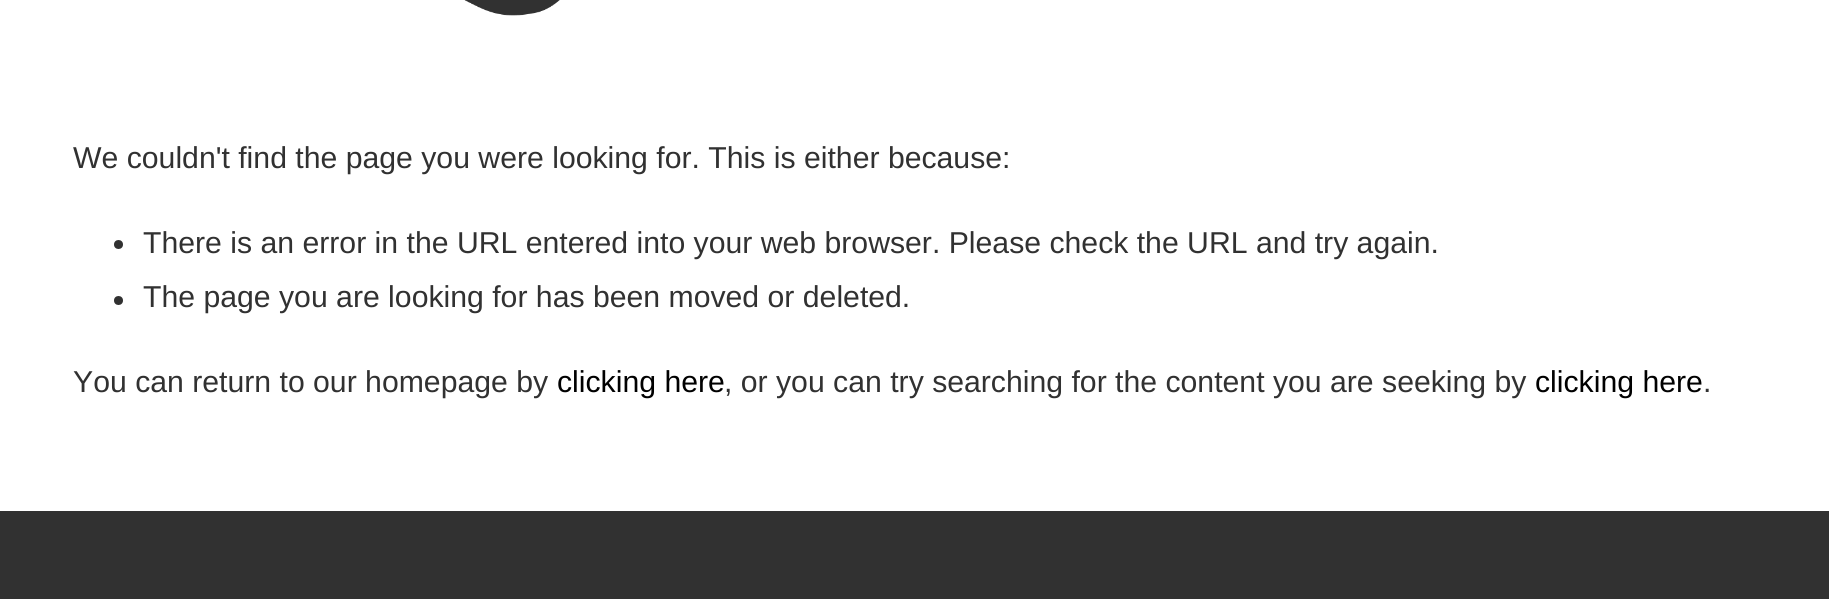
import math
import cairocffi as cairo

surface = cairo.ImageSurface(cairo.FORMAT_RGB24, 1829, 599)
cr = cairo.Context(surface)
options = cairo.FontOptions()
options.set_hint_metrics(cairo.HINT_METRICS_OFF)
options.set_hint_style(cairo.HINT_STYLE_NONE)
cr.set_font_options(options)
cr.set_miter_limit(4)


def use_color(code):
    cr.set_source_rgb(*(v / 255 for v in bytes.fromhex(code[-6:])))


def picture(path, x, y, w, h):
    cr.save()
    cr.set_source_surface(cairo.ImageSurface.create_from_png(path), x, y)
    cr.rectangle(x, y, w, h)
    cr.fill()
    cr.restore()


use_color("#ffffff")
cr.paint()
picture("img1.png", 464, 0, 96, 16)
cr.select_font_face("Liberation Sans")
cr.set_font_size(30.2)
use_color("#313131")
cr.move_to(73, 168)
cr.show_text("We couldn't find the page you were looking for. This is either because:")
cr.new_path()
cr.arc(118.5, 244.5, 4.5, 0, 2 * math.pi)
cr.fill()
cr.move_to(143, 253)
cr.show_text("There is an error in the URL entered into your web browser. Please check the URL and try again.")
cr.new_path()
cr.arc(118.5, 300.5, 4.5, 0, 2 * math.pi)
cr.fill()
cr.move_to(143, 307)
cr.show_text("The page you are looking for has been moved or deleted.")
cr.move_to(73, 392)
cr.show_text("You can return to our homepage by")
use_color("#000000")
cr.move_to(557, 392)
cr.show_text("clicking here")
use_color("#313131")
cr.move_to(724, 392)
cr.show_text(", or you can try searching for the content you are seeking by")
use_color("#000000")
cr.move_to(1535, 392)
cr.show_text("clicking here")
use_color("#313131")
cr.move_to(1703, 392)
cr.show_text(".")
cr.rectangle(0, 511, 1829, 88)
cr.fill()
surface.write_to_png("result.png")
